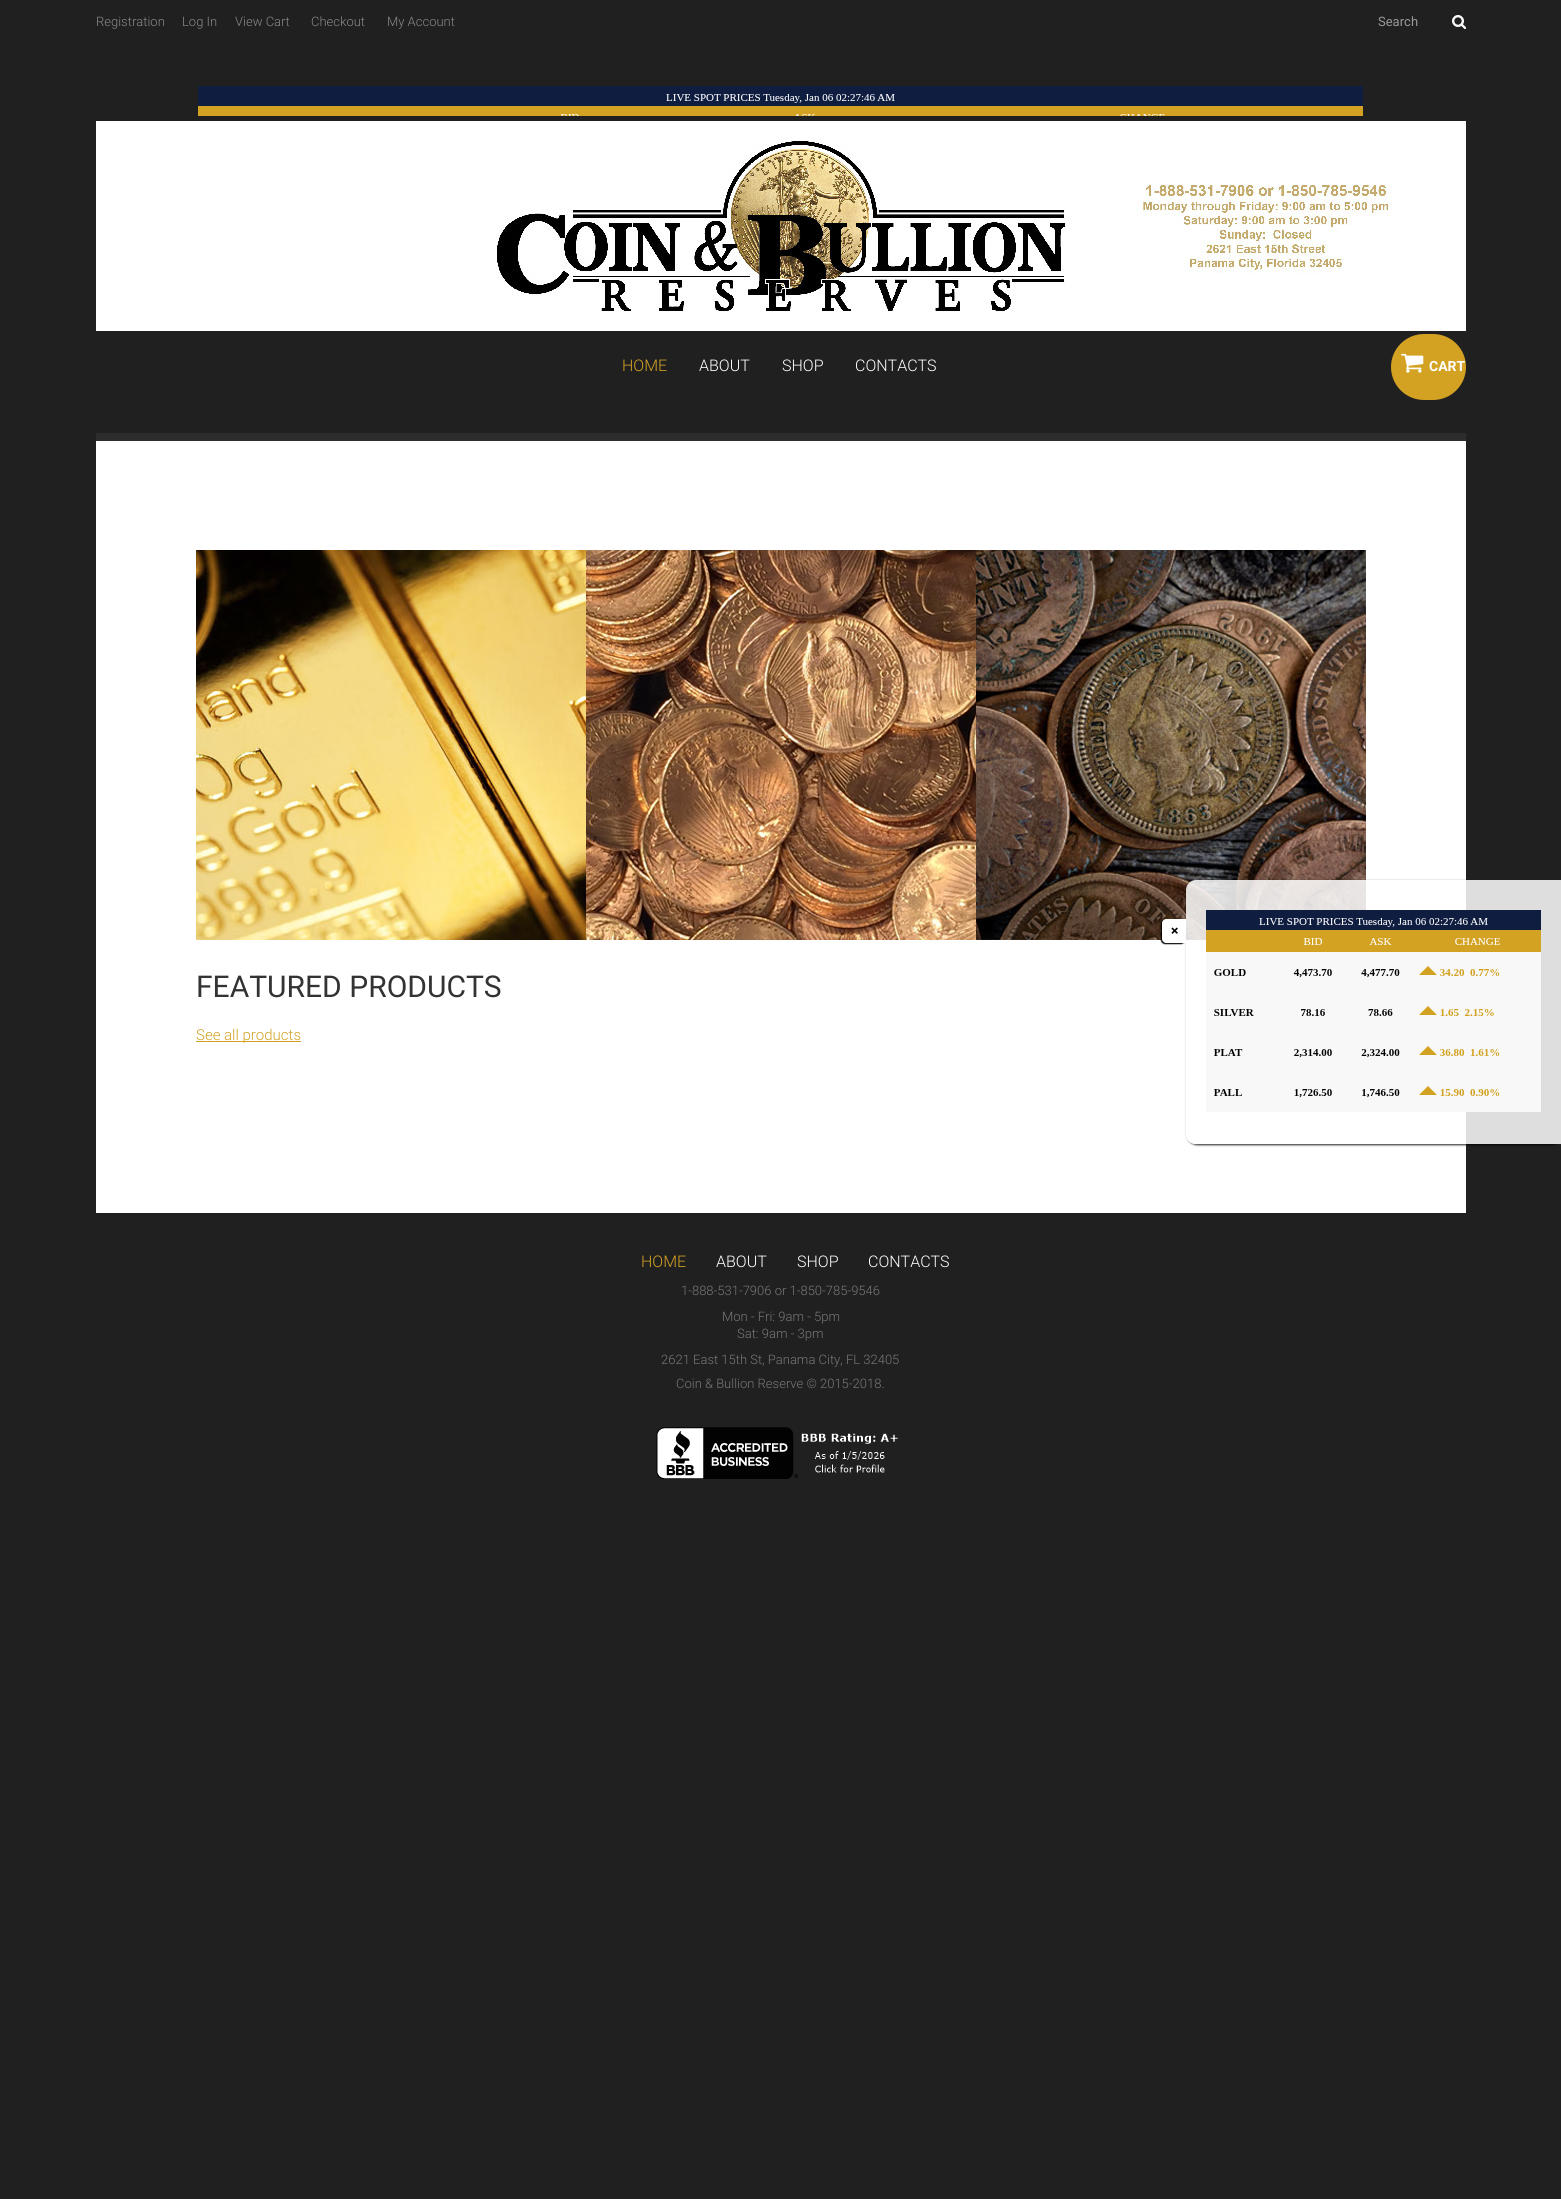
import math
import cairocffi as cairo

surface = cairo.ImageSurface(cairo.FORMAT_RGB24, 1561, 2199)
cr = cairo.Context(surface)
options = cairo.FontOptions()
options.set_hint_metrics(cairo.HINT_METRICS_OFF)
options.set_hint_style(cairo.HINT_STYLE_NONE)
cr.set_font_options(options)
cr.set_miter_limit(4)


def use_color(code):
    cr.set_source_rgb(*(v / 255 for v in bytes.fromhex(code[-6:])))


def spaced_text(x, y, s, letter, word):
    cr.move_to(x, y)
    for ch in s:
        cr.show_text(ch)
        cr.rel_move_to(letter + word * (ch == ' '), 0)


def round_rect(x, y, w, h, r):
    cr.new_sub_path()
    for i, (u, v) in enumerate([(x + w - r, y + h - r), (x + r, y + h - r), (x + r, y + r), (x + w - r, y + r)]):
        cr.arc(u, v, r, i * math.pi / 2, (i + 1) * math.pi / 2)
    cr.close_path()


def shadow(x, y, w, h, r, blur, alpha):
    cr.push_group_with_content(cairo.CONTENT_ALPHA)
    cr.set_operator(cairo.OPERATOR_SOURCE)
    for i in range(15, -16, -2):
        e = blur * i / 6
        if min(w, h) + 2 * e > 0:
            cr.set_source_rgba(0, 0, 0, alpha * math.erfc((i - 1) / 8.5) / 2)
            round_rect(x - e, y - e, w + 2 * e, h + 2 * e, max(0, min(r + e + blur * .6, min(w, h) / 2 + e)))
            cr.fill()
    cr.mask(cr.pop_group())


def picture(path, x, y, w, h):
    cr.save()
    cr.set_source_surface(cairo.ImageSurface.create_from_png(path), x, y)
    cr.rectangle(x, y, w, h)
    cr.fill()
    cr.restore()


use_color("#202021")
cr.paint()
use_color("#2d2d2d")
cr.rectangle(96, 433, 1370, 8)
cr.fill()
cr.select_font_face("Roboto Light")
cr.set_font_size(13)
use_color("#888888")
cr.move_to(96, 26)
cr.show_text("Registration")
cr.move_to(182, 26)
cr.show_text("Log In")
cr.move_to(235, 26)
cr.show_text("View Cart")
cr.move_to(311, 26)
cr.show_text("Checkout")
cr.move_to(387, 26)
cr.show_text("My Account")
cr.select_font_face("Roboto")
use_color("#999999")
cr.move_to(1378, 26)
cr.show_text("Search")
picture("img1.png", 1452, 15, 14, 14)
picture("img2.png", 198, 86, 1165, 30)
picture("img3.png", 96, 121, 1370, 210)
cr.select_font_face("Roboto Light")
cr.set_font_size(16)
use_color("#d3a223")
cr.move_to(622, 371)
cr.show_text("HOME")
use_color("#ffffff")
cr.move_to(699, 371)
cr.show_text("ABOUT")
cr.move_to(782, 371)
cr.show_text("SHOP")
cr.move_to(855, 371)
cr.show_text("CONTACTS")
use_color("#d3a223")
round_rect(1391, 334, 75, 66, 33)
cr.fill()
picture("img4.png", 1401, 353, 23, 20)
cr.select_font_face("Roboto", cairo.FONT_SLANT_NORMAL, cairo.FONT_WEIGHT_BOLD)
cr.set_font_size(14)
use_color("#ffffff")
cr.move_to(1429, 371)
cr.show_text("CART")
cr.rectangle(96, 441, 1370, 772)
cr.fill()
picture("img5.png", 196, 550, 390, 390)
picture("img6.png", 586, 550, 390, 390)
picture("img7.png", 976, 550, 390, 390)
cr.select_font_face("Roboto")
cr.set_font_size(30)
use_color("#333333")
cr.move_to(196, 997)
cr.show_text("FEATURED PRODUCTS")
use_color("#d3a223")
cr.rectangle(196, 1041, 105, 1)
cr.fill()
cr.select_font_face("Roboto Light")
cr.set_font_size(15)
cr.move_to(196, 1040)
cr.show_text("See all products")
cr.set_font_size(16)
cr.move_to(641, 1267)
cr.show_text("HOME")
use_color("#ffffff")
cr.move_to(716, 1267)
cr.show_text("ABOUT")
cr.move_to(797, 1267)
cr.show_text("SHOP")
cr.move_to(868, 1267)
cr.show_text("CONTACTS")
cr.set_font_size(13)
use_color("#777777")
cr.move_to(681, 1295)
cr.show_text("1-888-531-7906 or 1-850-785-9546")
cr.move_to(722, 1321)
cr.show_text("Mon - Fri: 9am - 5pm")
cr.move_to(737, 1338)
cr.show_text("Sat: 9am - 3pm")
cr.move_to(661, 1364)
cr.show_text("2621 East 15th St, Panama City, FL 32405")
cr.move_to(676, 1388)
cr.show_text("Coin & Bullion Reserve © 2015-2018.")
picture("img8.png", 656, 1427, 242, 52)
cr.save()
cr.set_fill_rule(cairo.FILL_RULE_EVEN_ODD)
cr.new_path()
cr.move_to(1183, 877)
cr.line_to(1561, 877)
cr.line_to(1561, 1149)
cr.line_to(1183, 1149)
cr.close_path()
cr.move_to(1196, 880)
cr.line_to(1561, 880)
cr.line_to(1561, 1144)
cr.line_to(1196, 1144)
cr.curve_to(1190.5, 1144, 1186, 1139.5, 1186, 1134)
cr.line_to(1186, 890)
cr.curve_to(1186, 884.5, 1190.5, 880, 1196, 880)
cr.close_path()
cr.clip()
use_color("#000000")
shadow(1187, 881, 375, 264, 10, 1, 0.85)
cr.restore()
cr.set_source_rgba(1, 1, 1, 0.85)
cr.new_path()
cr.move_to(1196, 880)
cr.line_to(1561, 880)
cr.line_to(1561, 1144)
cr.line_to(1196, 1144)
cr.curve_to(1190.5, 1144, 1186, 1139.5, 1186, 1134)
cr.line_to(1186, 890)
cr.curve_to(1186, 884.5, 1190.5, 880, 1196, 880)
cr.close_path()
cr.fill()
use_color("#000000")
shadow(1161, 920, 24, 24, 4, 0.5, 1)
use_color("#ffffff")
cr.new_path()
cr.move_to(1166, 919)
cr.line_to(1186, 919)
cr.line_to(1186, 943)
cr.line_to(1166, 943)
cr.curve_to(1164, 943, 1162, 941, 1162, 939)
cr.line_to(1162, 923)
cr.curve_to(1162, 921, 1164, 919, 1166, 919)
cr.close_path()
cr.fill()
cr.select_font_face("Roboto", cairo.FONT_SLANT_NORMAL, cairo.FONT_WEIGHT_BOLD)
cr.set_font_size(14)
use_color("#000000")
cr.save()
cr.translate(1170, 927)
cr.rotate(90 * math.pi / 180)
spaced_text(0, 0, "×", 1, 0)
cr.restore()
picture("img9.png", 1206, 910, 335, 202)
surface.write_to_png("result.png")
